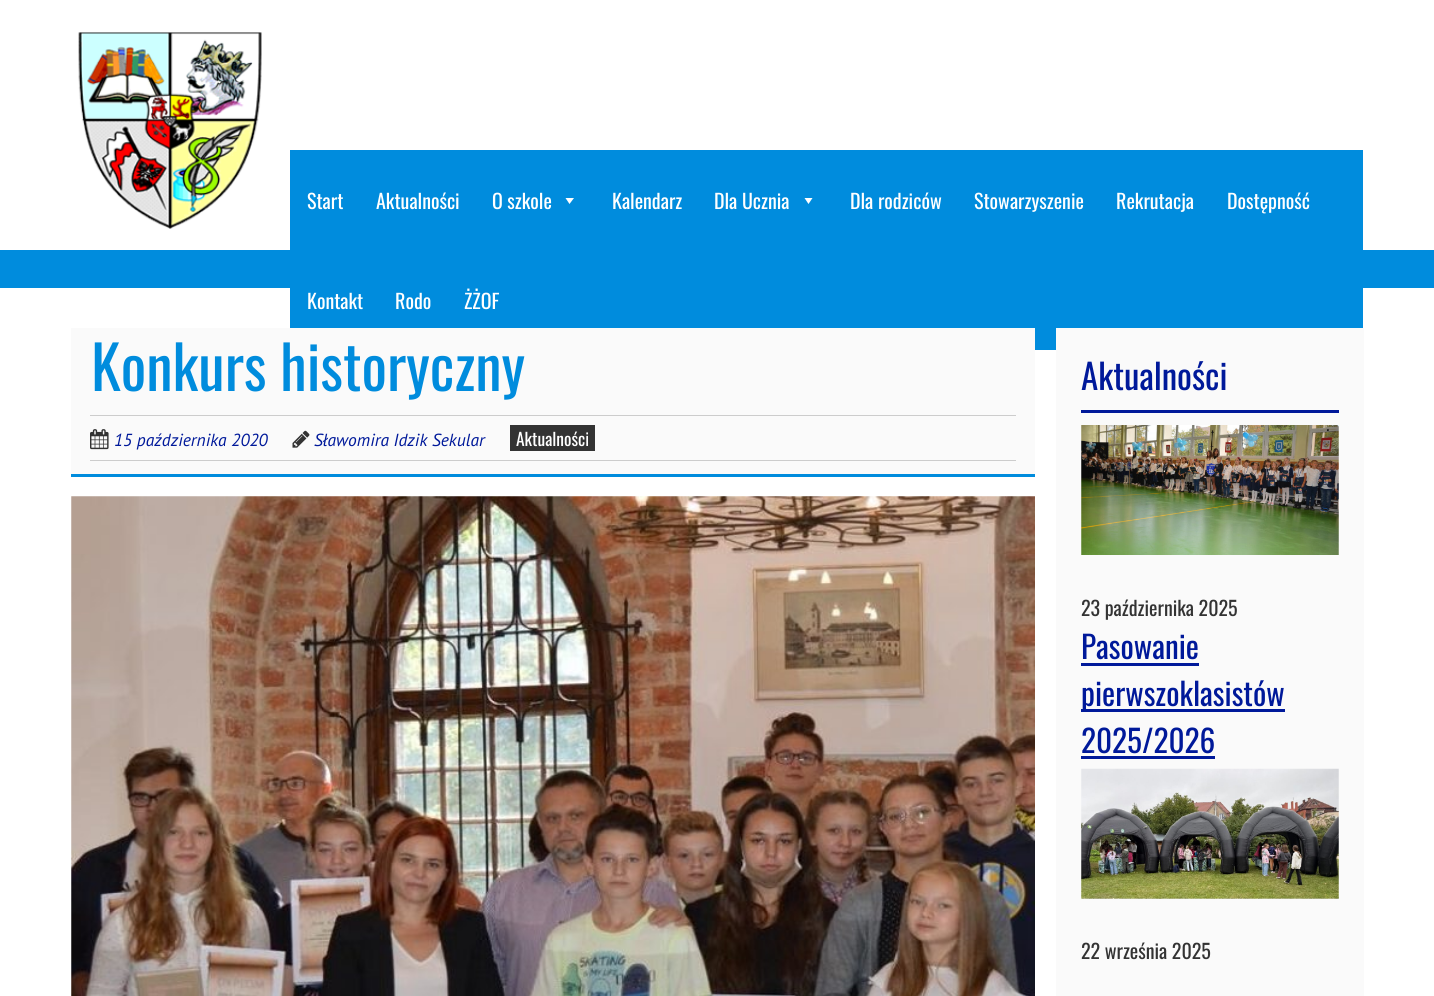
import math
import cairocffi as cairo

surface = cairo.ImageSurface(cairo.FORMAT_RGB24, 1434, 996)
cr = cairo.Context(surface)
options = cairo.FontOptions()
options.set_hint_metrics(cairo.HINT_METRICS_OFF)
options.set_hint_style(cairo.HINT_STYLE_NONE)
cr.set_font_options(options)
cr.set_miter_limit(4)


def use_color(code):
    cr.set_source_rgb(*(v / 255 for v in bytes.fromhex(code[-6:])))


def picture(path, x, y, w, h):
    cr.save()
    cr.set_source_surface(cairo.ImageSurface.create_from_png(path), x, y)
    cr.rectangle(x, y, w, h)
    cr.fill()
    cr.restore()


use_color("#ffffff")
cr.paint()
picture("img1.png", 78, 32, 184, 197)
use_color("#008cdd")
cr.rectangle(0, 250, 1434, 38)
cr.fill()
cr.rectangle(290, 150, 1073, 200)
cr.fill()
cr.select_font_face("Oswald")
cr.set_font_size(20)
use_color("#ffffff")
cr.move_to(307, 209)
cr.show_text("Start")
cr.move_to(376, 209)
cr.show_text("Aktualności")
cr.move_to(492, 209)
cr.show_text("O szkole")
cr.new_path()
cr.move_to(574, 198)
cr.line_to(569.5, 204)
cr.line_to(565.5, 198)
cr.close_path()
cr.fill()
cr.move_to(612, 209)
cr.show_text("Kalendarz")
cr.move_to(714, 209)
cr.show_text("Dla Ucznia")
cr.new_path()
cr.move_to(812.5, 198)
cr.line_to(808.5, 204)
cr.line_to(804.5, 198)
cr.close_path()
cr.fill()
cr.move_to(850, 209)
cr.show_text("Dla rodziców")
cr.move_to(974, 209)
cr.show_text("Stowarzyszenie")
cr.move_to(1116, 209)
cr.show_text("Rekrutacja")
cr.move_to(1227, 209)
cr.show_text("Dostępność")
cr.move_to(307, 309)
cr.show_text("Kontakt")
cr.move_to(395, 309)
cr.show_text("Rodo")
cr.move_to(464, 309)
cr.show_text("ŻŻOF")
use_color("#fafafa")
cr.rectangle(71, 328, 964, 146)
cr.fill()
use_color("#008cdd")
cr.rectangle(71, 474, 964, 3)
cr.fill()
cr.set_font_size(60)
cr.move_to(91, 391)
cr.show_text("Konkurs historyczny")
use_color("#cccccc")
cr.rectangle(90, 415, 926, 1)
cr.fill()
cr.rectangle(90, 460, 926, 1)
cr.fill()
picture("img2.png", 90, 429, 19, 21)
cr.select_font_face("PT Sans", cairo.FONT_SLANT_ITALIC)
cr.set_font_size(17.5)
use_color("#00199a")
cr.move_to(114, 446)
cr.show_text("15 października 2020")
picture("img3.png", 292, 430, 18, 18)
cr.move_to(314, 446)
cr.show_text("Sławomira Idzik Sekular")
use_color("#333333")
cr.rectangle(510, 425, 85, 26)
cr.fill()
cr.select_font_face("Oswald")
use_color("#ffffff")
cr.move_to(516, 446)
cr.show_text("Aktualności")
picture("img4.png", 71, 496, 964, 500)
use_color("#fafafa")
cr.rectangle(1056, 328, 308, 668)
cr.fill()
use_color("#00199a")
cr.rectangle(1081, 410, 258, 3)
cr.fill()
cr.set_font_size(35)
cr.move_to(1081, 390)
cr.show_text("Aktualności")
picture("img5.png", 1081, 425, 258, 130)
cr.set_font_size(20)
use_color("#333333")
cr.move_to(1081, 616)
cr.show_text("23 października 2025")
cr.set_font_size(31.25)
use_color("#00199a")
cr.move_to(1081, 659)
cr.show_text("Pasowanie")
cr.rectangle(1081, 663, 118, 3)
cr.fill()
cr.rectangle(1081, 709, 204, 3)
cr.fill()
cr.move_to(1081, 706)
cr.show_text("pierwszoklasistów")
cr.move_to(1081, 753)
cr.show_text("2025/2026")
cr.rectangle(1081, 756, 134, 3)
cr.fill()
picture("img6.png", 1081, 768, 258, 131)
cr.set_font_size(20)
use_color("#333333")
cr.move_to(1081, 959)
cr.show_text("22 września 2025")
surface.write_to_png("result.png")
